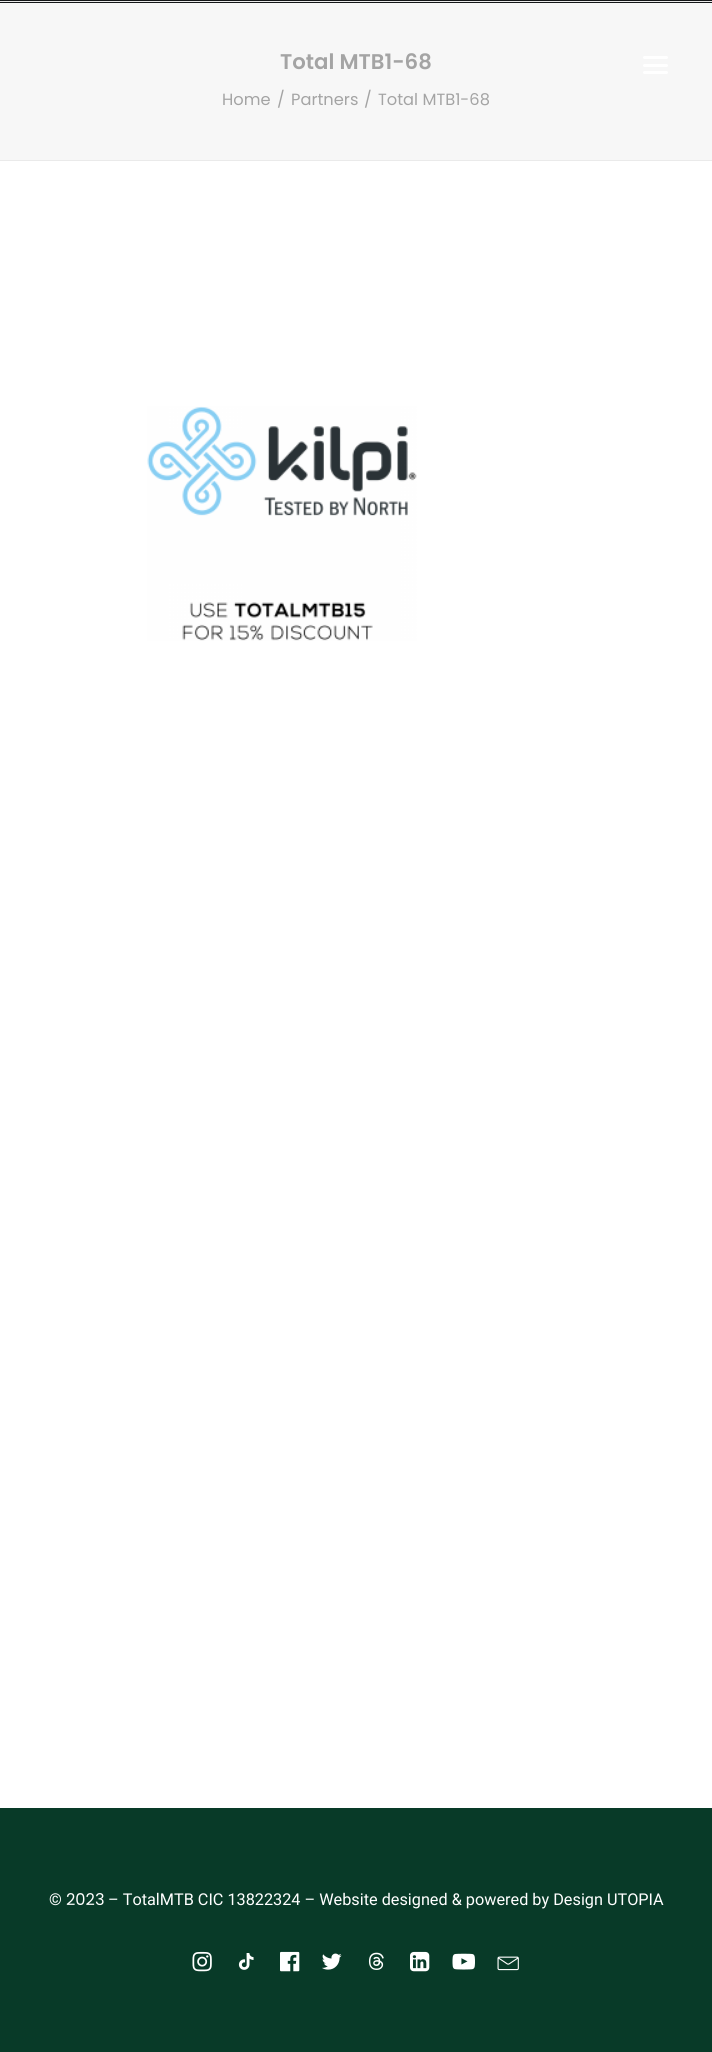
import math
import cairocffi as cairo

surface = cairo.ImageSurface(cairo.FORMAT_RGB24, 712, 2052)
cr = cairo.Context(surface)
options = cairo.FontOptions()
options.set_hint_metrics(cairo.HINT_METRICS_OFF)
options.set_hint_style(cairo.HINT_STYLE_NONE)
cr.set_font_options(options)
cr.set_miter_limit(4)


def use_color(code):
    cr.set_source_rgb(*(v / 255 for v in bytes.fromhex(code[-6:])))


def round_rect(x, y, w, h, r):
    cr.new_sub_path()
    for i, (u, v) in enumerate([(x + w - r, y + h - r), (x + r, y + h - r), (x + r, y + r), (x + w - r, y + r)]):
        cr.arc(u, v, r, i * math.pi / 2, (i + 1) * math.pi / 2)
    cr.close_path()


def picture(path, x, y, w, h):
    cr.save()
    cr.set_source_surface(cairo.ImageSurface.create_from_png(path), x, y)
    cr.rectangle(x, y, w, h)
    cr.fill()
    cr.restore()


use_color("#141618")
cr.paint()
use_color("#f7f7f7")
cr.rectangle(0, 3, 712, 157)
cr.fill()
use_color("#eaeaea")
cr.rectangle(0, 1, 712, 1)
cr.fill()
cr.rectangle(0, 160, 712, 1)
cr.fill()
cr.select_font_face("Poppins SemiBold")
cr.set_font_size(21.25)
use_color("#a4a4a4")
cr.move_to(280, 69)
cr.show_text("Total MTB1-68")
cr.select_font_face("Poppins")
cr.set_font_size(16.25)
cr.move_to(222, 105)
cr.show_text("Home")
cr.move_to(277, 105)
cr.show_text("/")
cr.move_to(291, 105)
cr.show_text("Partners")
cr.move_to(364, 105)
cr.show_text("/")
cr.move_to(378, 105)
cr.show_text("Total MTB1-68")
use_color("#ffffff")
cr.rectangle(0, 161, 712, 1647)
cr.fill()
picture("img1.png", 147, 406, 270, 235)
use_color("#083a28")
cr.rectangle(0, 1808, 712, 244)
cr.fill()
cr.select_font_face("Roboto")
use_color("#ffffff")
cr.move_to(49, 1905)
cr.show_text("©")
cr.select_font_face("Poppins")
cr.move_to(66, 1905)
cr.show_text("2023")
cr.select_font_face("Roboto")
cr.move_to(108, 1905)
cr.show_text("– TotalMTB CIC 13822324 – Website designed & powered by Design UTOPIA")
picture("img2.png", 192, 1951, 20, 21)
picture("img3.png", 238, 1953, 16, 17)
picture("img4.png", 280, 1951, 20, 21)
picture("img5.png", 322, 1953, 20, 17)
picture("img6.png", 368, 1952, 16, 18)
picture("img7.png", 410, 1951, 20, 21)
picture("img8.png", 452, 1953, 23, 17)
picture("img9.png", 497, 1956, 22, 15)
round_rect(643, 64, 25, 3, 1.5)
cr.fill()
round_rect(643, 56, 25, 3, 1.5)
cr.fill()
round_rect(643, 71, 25, 3, 1.5)
cr.fill()
surface.write_to_png("result.png")
